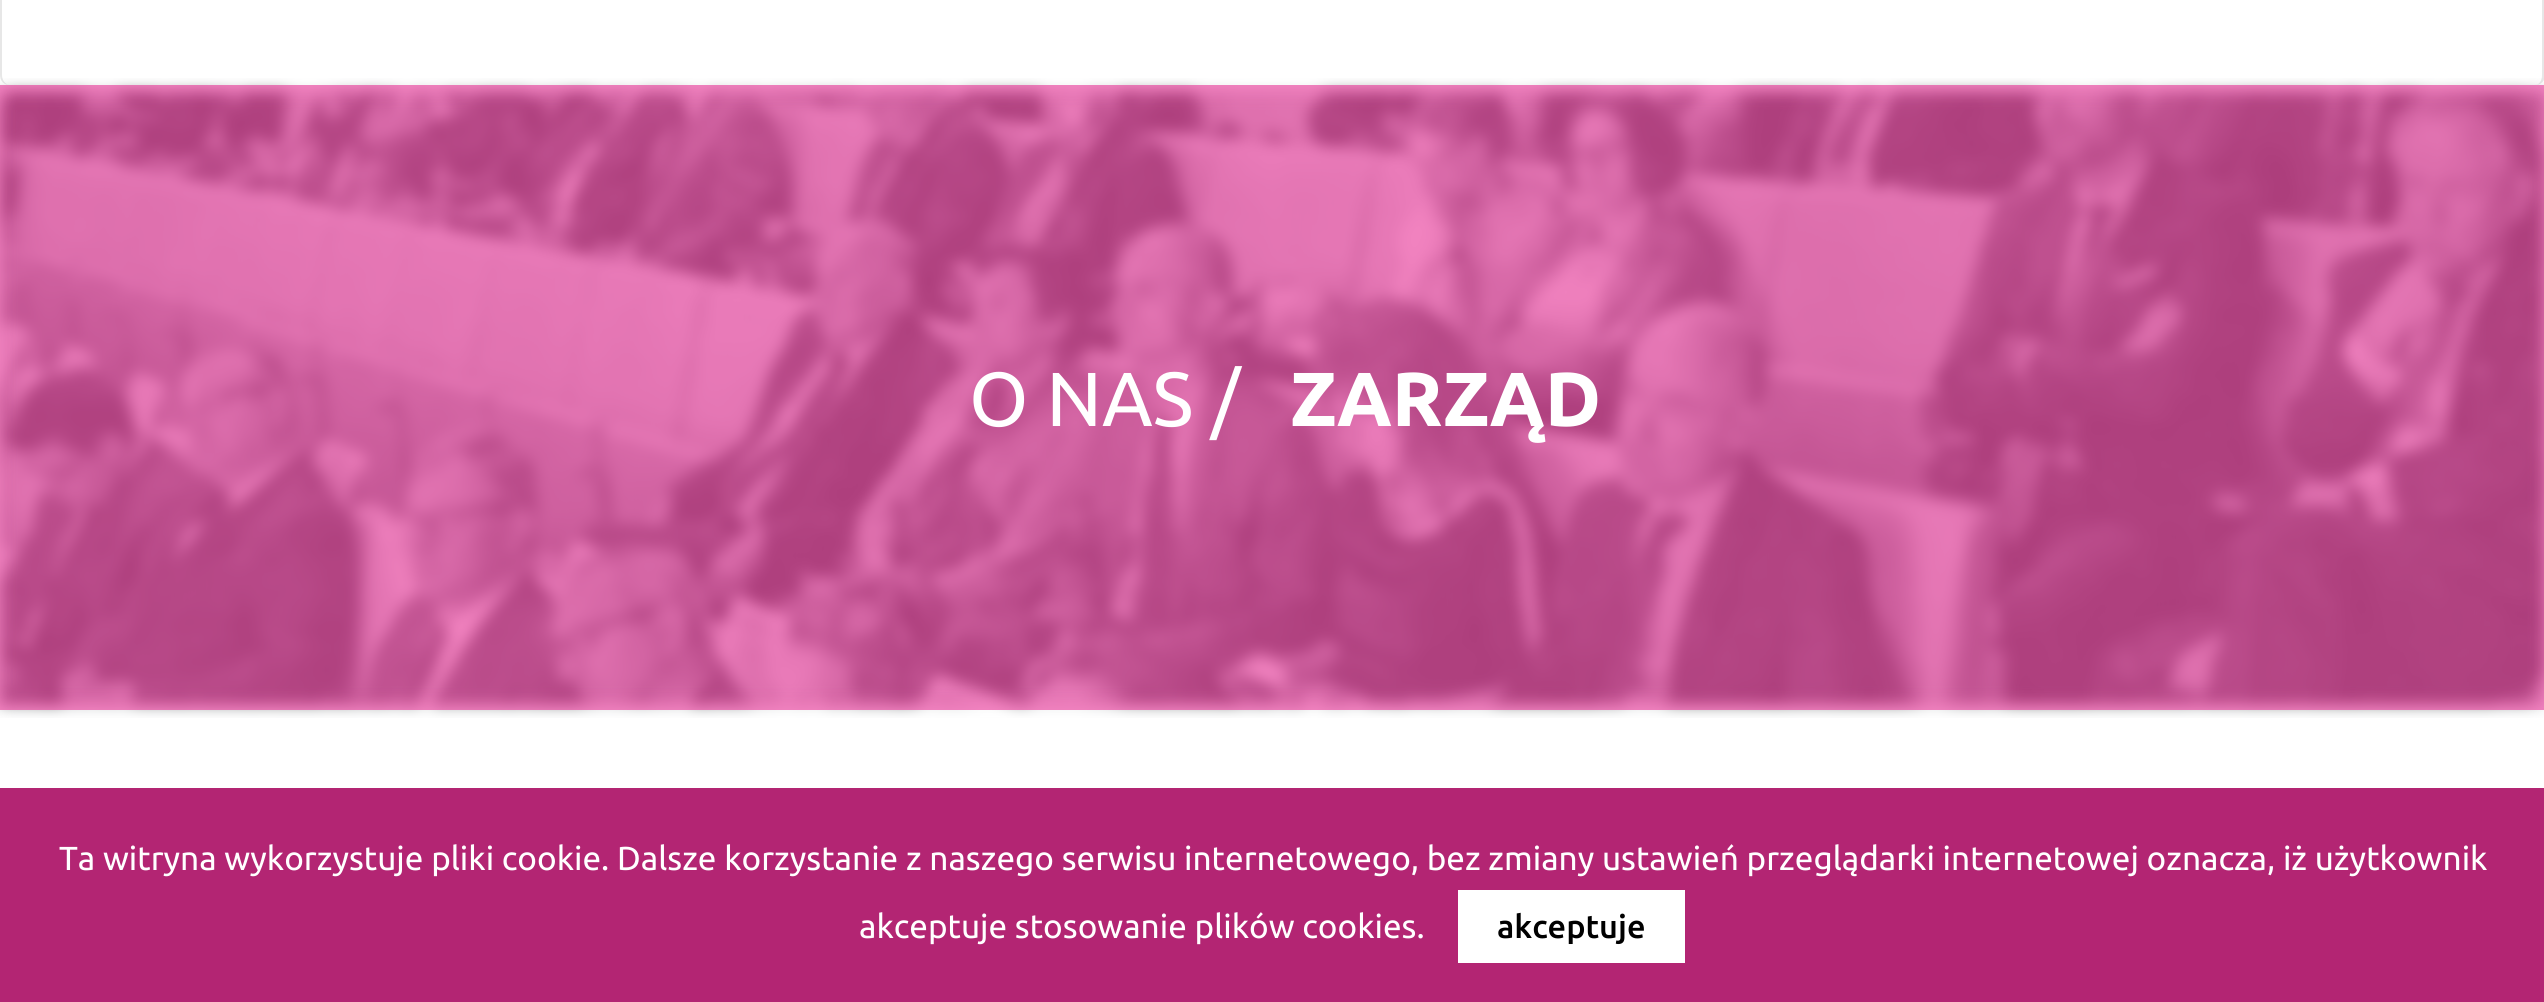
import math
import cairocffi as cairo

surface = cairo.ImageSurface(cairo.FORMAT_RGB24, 2544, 1002)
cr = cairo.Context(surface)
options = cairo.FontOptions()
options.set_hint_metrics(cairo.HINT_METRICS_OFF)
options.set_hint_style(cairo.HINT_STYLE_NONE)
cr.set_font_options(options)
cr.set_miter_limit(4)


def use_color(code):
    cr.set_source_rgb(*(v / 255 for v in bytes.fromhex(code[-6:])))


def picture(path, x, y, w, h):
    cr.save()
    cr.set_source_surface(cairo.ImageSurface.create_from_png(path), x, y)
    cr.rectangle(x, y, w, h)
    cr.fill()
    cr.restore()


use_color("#ffffff")
cr.paint()
use_color("#f283c0")
cr.rectangle(0, 85, 2544, 625)
cr.fill()
use_color("#e7e7e7")
cr.set_fill_rule(cairo.FILL_RULE_EVEN_ODD)
cr.new_path()
cr.move_to(10, -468)
cr.line_to(2535, -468)
cr.curve_to(2541, -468, 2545, -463, 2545, -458)
cr.line_to(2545, 75)
cr.curve_to(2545, 81, 2541, 85, 2535, 85)
cr.line_to(10, 85)
cr.curve_to(4, 85, 0, 81, 0, 75)
cr.line_to(0, -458)
cr.curve_to(0, -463, 4, -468, 10, -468)
cr.close_path()
cr.move_to(10, -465)
cr.line_to(2535, -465)
cr.curve_to(2539, -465, 2542, -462, 2542, -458)
cr.line_to(2542, 75)
cr.curve_to(2542, 81, 2539, 85, 2535, 85)
cr.line_to(10, 85)
cr.curve_to(6, 85, 2, 81, 2, 75)
cr.line_to(2, -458)
cr.curve_to(2, -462, 6, -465, 10, -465)
cr.close_path()
cr.fill()
picture("img1.png", 0, 78, 2544, 640)
cr.select_font_face("Ubuntu")
cr.set_font_size(76.5)
use_color("#ffffff")
cr.move_to(969, 426)
cr.show_text("O NAS /")
cr.select_font_face("Ubuntu", cairo.FONT_SLANT_NORMAL, cairo.FONT_WEIGHT_BOLD)
cr.move_to(1290, 426)
cr.show_text("ZARZĄD")
use_color("#b32573")
cr.rectangle(0, 788, 2544, 214)
cr.fill()
cr.select_font_face("Ubuntu")
cr.set_font_size(33.33)
use_color("#ffffff")
cr.move_to(59, 870)
cr.show_text("Ta witryna wykorzystuje pliki cookie. Dalsze korzystanie z naszego serwisu internetowego, bez zmiany ustawień przeglądarki internetowej oznacza, iż użytkownik")
cr.move_to(859, 938)
cr.show_text("akceptuje stosowanie plików cookies.")
cr.rectangle(1458, 890, 227, 73)
cr.fill()
cr.select_font_face("Ubuntu Medium")
cr.set_font_size(32.5)
use_color("#000000")
cr.move_to(1497, 938)
cr.show_text("akceptuje")
surface.write_to_png("result.png")
